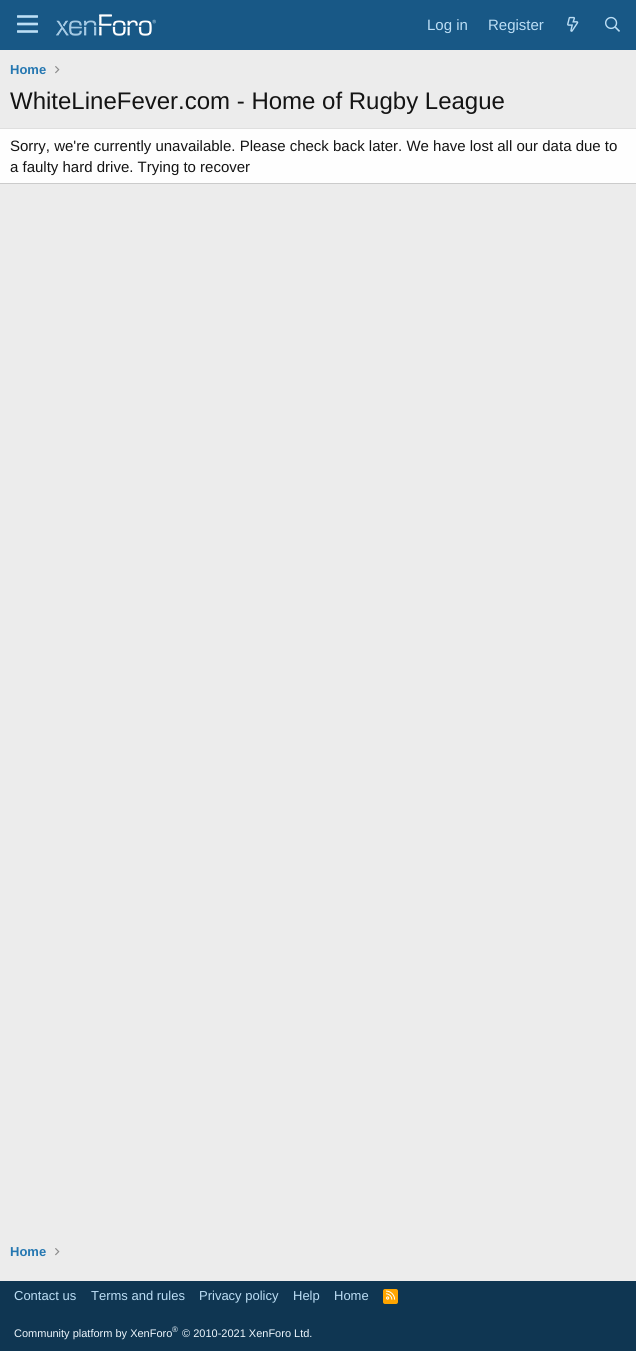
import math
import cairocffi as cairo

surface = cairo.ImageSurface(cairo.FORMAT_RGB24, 636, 1351)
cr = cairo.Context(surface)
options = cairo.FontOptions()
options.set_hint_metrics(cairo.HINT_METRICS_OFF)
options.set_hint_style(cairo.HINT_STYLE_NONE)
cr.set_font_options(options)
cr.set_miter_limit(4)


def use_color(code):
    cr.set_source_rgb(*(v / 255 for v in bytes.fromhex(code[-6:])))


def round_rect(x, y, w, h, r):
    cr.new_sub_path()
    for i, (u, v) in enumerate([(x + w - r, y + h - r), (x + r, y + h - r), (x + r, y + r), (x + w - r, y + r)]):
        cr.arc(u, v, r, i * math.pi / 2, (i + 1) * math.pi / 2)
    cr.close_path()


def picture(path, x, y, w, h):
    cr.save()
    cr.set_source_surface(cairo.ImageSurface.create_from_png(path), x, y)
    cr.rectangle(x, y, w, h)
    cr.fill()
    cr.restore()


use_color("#ececec")
cr.paint()
use_color("#185886")
cr.rectangle(0, 0, 636, 50)
cr.fill()
picture("img1.png", 17, 15, 21, 18)
picture("img2.png", 56, 14, 100, 22)
cr.select_font_face("Liberation Sans")
cr.set_font_size(15)
use_color("#bcdef5")
cr.move_to(427, 30)
cr.show_text("Log in")
cr.move_to(488, 30)
cr.show_text("Register")
picture("img3.png", 567, 16, 12, 16)
picture("img4.png", 605, 16, 15, 16)
cr.select_font_face("Liberation Sans", cairo.FONT_SLANT_NORMAL, cairo.FONT_WEIGHT_BOLD)
cr.set_font_size(13)
use_color("#2577b1")
cr.move_to(10, 74)
cr.show_text("Home")
picture("img5.png", 55, 66, 5, 8)
cr.select_font_face("Liberation Sans")
cr.set_font_size(24)
use_color("#141414")
cr.move_to(10, 109)
cr.show_text("WhiteLineFever.com - Home of Rugby League")
use_color("#fefefe")
cr.rectangle(0, 129, 636, 54)
cr.fill()
use_color("#dfdfdf")
cr.rectangle(0, 128, 636, 1)
cr.fill()
use_color("#cbcbcb")
cr.rectangle(0, 183, 636, 1)
cr.fill()
cr.set_font_size(15)
use_color("#141414")
cr.move_to(10, 151)
cr.show_text("Sorry, we're currently unavailable. Please check back later. We have lost all our data due to")
cr.move_to(10, 172)
cr.show_text("a faulty hard drive. Trying to recover")
cr.select_font_face("Liberation Sans", cairo.FONT_SLANT_NORMAL, cairo.FONT_WEIGHT_BOLD)
cr.set_font_size(13)
use_color("#2577b1")
cr.move_to(10, 1256)
cr.show_text("Home")
picture("img5.png", 55, 1248, 5, 8)
use_color("#0f3652")
cr.rectangle(0, 1281, 636, 70)
cr.fill()
cr.select_font_face("Liberation Sans")
use_color("#bcdef5")
cr.move_to(14, 1300)
cr.show_text("Contact us")
cr.move_to(91, 1300)
cr.show_text("Terms and rules")
cr.move_to(199, 1300)
cr.show_text("Privacy policy")
cr.move_to(293, 1300)
cr.show_text("Help")
cr.move_to(334, 1300)
cr.show_text("Home")
use_color("#ffa500")
round_rect(383, 1289, 15, 15, 2)
cr.fill()
picture("img6.png", 386, 1290, 10, 10)
cr.set_font_size(11)
use_color("#edf6fd")
cr.move_to(14, 1337)
cr.show_text("Community platform by XenForo")
cr.set_font_size(8)
cr.move_to(172, 1332)
cr.show_text("®")
cr.set_font_size(11)
cr.move_to(182, 1337)
cr.show_text("© 2010-2021 XenForo Ltd.")
surface.write_to_png("result.png")
